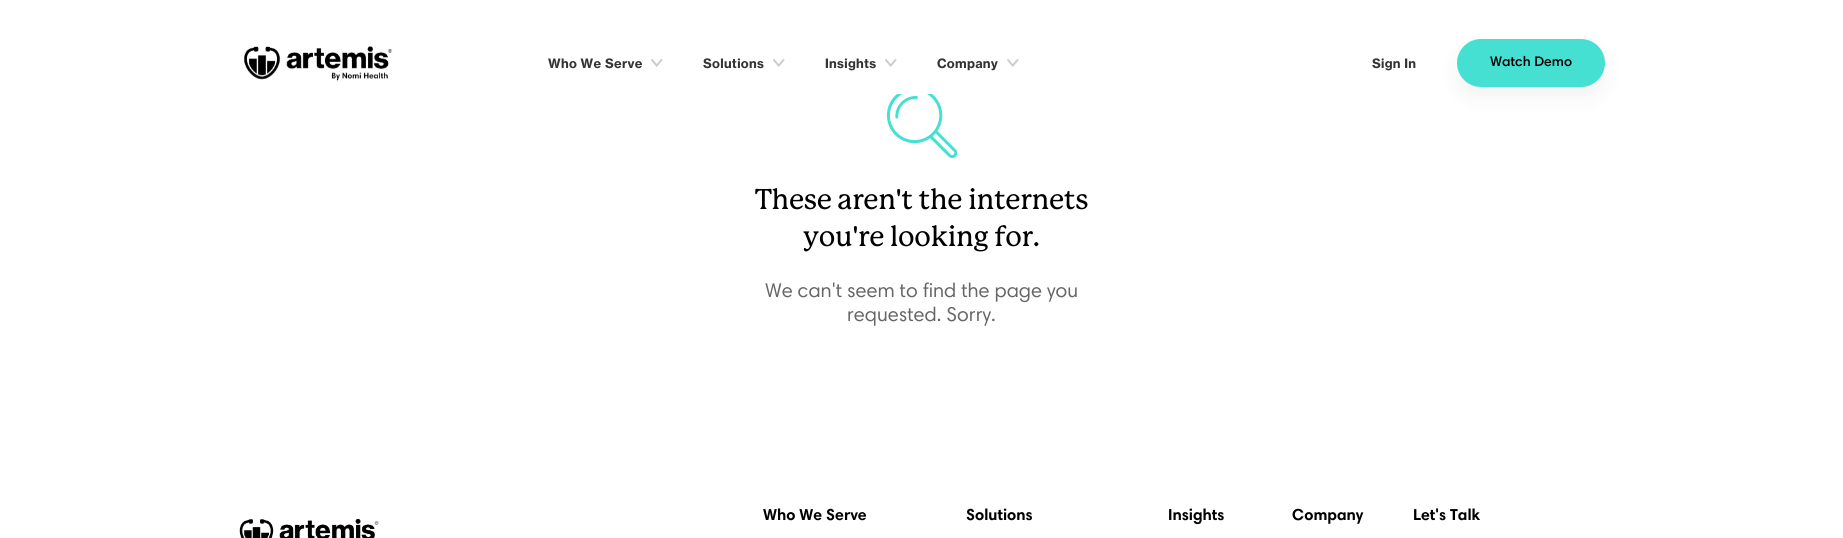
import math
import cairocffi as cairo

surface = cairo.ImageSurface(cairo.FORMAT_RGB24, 1843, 538)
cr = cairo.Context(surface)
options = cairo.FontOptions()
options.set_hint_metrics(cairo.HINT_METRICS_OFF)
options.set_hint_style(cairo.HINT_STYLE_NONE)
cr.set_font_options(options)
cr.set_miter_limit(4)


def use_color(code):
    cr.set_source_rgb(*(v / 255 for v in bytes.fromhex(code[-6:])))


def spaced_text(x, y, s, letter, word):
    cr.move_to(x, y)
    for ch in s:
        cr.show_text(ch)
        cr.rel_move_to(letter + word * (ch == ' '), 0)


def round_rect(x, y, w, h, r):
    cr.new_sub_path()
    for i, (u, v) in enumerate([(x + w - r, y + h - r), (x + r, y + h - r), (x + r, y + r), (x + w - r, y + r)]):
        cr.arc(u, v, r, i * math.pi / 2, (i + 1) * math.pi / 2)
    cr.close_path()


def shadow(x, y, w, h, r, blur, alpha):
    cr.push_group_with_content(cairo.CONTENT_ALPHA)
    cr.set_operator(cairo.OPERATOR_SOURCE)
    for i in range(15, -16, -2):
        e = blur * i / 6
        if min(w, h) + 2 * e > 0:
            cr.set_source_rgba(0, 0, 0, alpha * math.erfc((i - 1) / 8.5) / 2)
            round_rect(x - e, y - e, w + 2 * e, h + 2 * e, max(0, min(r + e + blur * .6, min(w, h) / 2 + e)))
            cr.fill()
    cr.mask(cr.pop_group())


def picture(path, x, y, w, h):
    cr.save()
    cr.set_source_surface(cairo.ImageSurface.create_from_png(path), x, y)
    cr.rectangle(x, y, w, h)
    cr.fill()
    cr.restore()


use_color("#ffffff")
cr.paint()
picture("img1.png", 244, 46, 149, 35)
cr.select_font_face("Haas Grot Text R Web", cairo.FONT_SLANT_NORMAL, cairo.FONT_WEIGHT_BOLD)
cr.set_font_size(12.75)
use_color("#333333")
spaced_text(548, 68, "Who We Serve", 0.3, 0)
picture("img2.png", 651, 59, 12, 8)
spaced_text(703, 68, "Solutions", 0.3, 0)
picture("img2.png", 773, 59, 12, 8)
spaced_text(825, 68, "Insights", 0.3, 0)
picture("img2.png", 885, 59, 12, 8)
spaced_text(937, 68, "Company", 0.3, 0)
picture("img2.png", 1007, 59, 12, 8)
spaced_text(1372, 68, "Sign In", 0.3, 0)
use_color("#000000")
shadow(1457, 49, 148, 48, 24, 10, 0.05)
use_color("#46e0d3")
round_rect(1457, 39, 148, 48, 24)
cr.fill()
cr.select_font_face("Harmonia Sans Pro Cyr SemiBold")
cr.set_font_size(14)
use_color("#000000")
cr.move_to(1490, 66)
cr.show_text("Watch Demo")
picture("img3.png", 886, 94, 72, 65)
cr.select_font_face("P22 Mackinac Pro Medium")
cr.set_font_size(28)
spaced_text(755, 209, "These aren't the internets", -0.25, 0)
spaced_text(803, 246, "you're looking for.", -0.25, 0)
cr.select_font_face("Harmonia Sans Pro Cyr")
cr.set_font_size(20)
use_color("#666666")
cr.move_to(765, 297)
cr.show_text("We can't seem to find the page you")
cr.move_to(847, 321)
cr.show_text("requested. Sorry.")
cr.select_font_face("Harmonia Sans Pro Cyr", cairo.FONT_SLANT_NORMAL, cairo.FONT_WEIGHT_BOLD)
cr.set_font_size(16)
use_color("#000000")
cr.move_to(763, 520)
cr.show_text("Who We Serve")
cr.move_to(966, 520)
cr.show_text("Solutions")
cr.move_to(1168, 520)
cr.show_text("Insights")
cr.move_to(1292, 520)
cr.show_text("Company")
cr.move_to(1413, 520)
cr.show_text("Let's Talk")
picture("img4.png", 239, 518, 140, 20)
surface.write_to_png("result.png")
